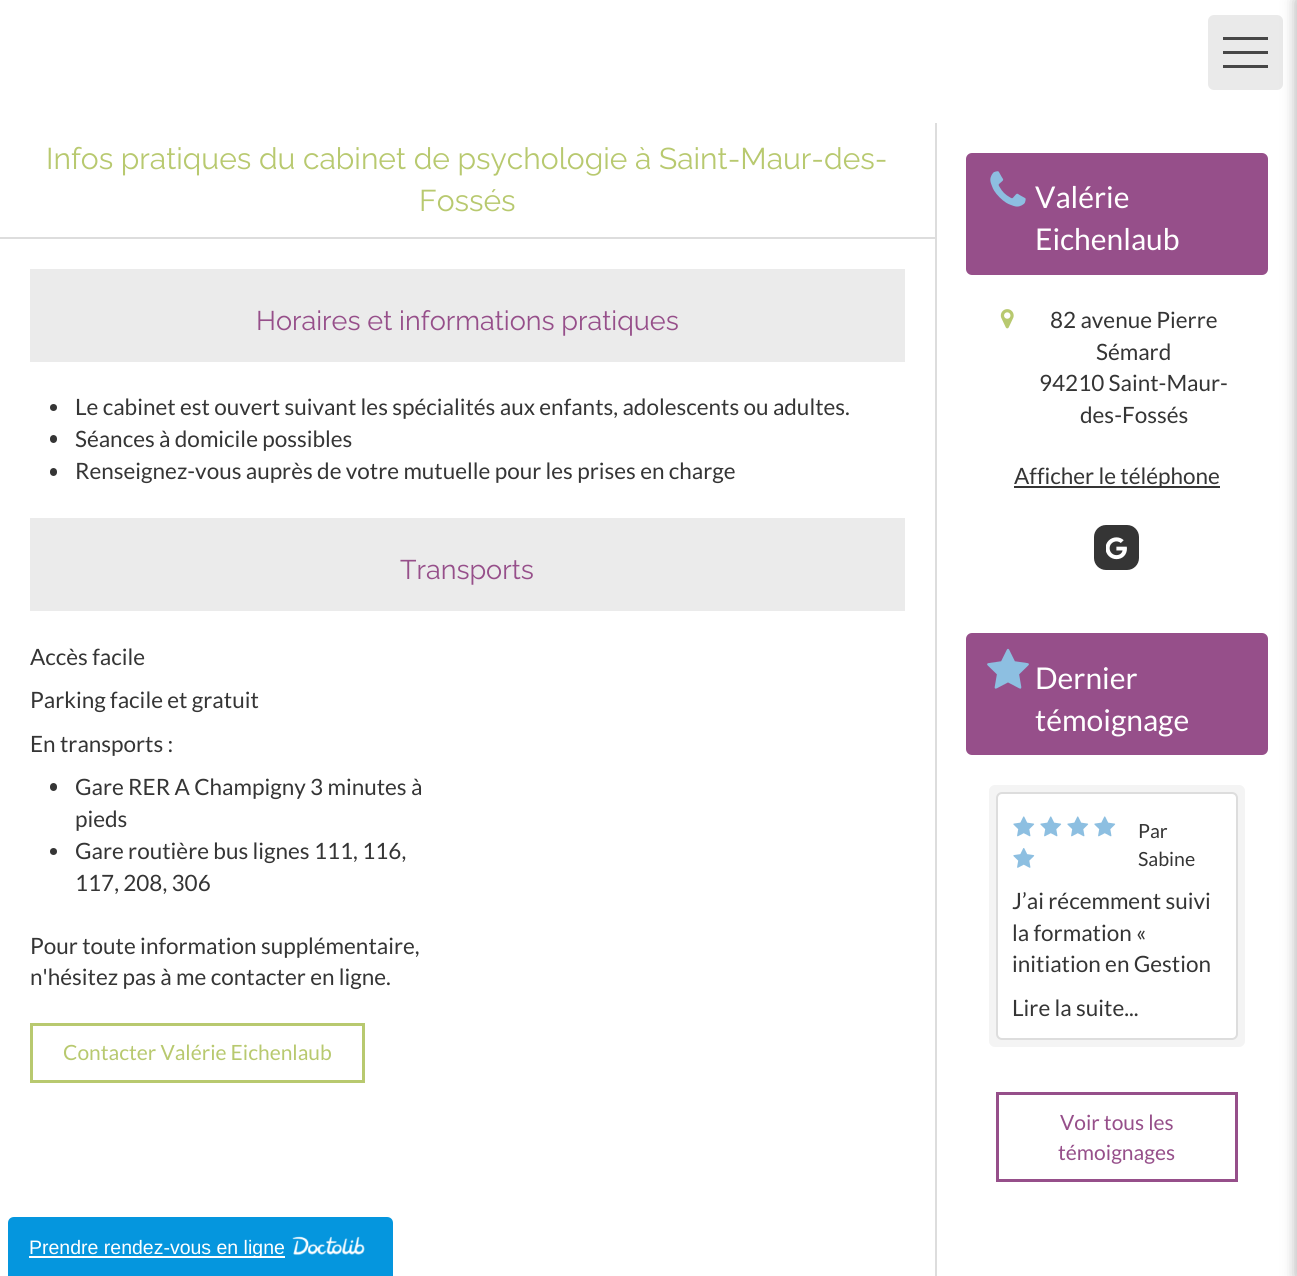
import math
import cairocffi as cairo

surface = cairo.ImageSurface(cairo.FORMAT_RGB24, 1297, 1276)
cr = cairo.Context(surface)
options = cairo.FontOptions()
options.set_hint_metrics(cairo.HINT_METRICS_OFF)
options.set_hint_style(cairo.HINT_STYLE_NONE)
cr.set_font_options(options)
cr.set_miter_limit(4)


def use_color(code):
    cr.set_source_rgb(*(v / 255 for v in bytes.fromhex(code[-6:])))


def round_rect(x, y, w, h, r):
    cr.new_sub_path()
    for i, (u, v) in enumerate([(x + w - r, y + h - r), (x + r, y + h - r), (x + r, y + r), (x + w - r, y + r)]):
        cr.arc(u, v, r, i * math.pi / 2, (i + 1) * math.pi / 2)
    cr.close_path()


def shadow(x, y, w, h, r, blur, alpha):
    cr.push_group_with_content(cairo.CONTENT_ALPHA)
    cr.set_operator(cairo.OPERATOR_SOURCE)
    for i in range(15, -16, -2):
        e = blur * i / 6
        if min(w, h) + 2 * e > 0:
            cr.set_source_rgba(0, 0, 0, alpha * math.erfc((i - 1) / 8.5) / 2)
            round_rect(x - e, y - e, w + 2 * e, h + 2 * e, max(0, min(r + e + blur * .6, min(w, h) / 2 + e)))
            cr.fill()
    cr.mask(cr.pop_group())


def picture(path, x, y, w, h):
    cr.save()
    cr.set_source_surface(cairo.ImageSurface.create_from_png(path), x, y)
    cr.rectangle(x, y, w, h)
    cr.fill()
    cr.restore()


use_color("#ffffff")
cr.paint()
use_color("#eaeaea")
round_rect(1208, 15, 75, 75, 6)
cr.fill()
use_color("#474747")
cr.rectangle(1223, 37, 45, 3)
cr.fill()
cr.rectangle(1223, 51, 45, 3)
cr.fill()
cr.rectangle(1223, 65, 45, 3)
cr.fill()
use_color("#dddddd")
cr.rectangle(0, 237, 935, 2)
cr.fill()
cr.select_font_face("Raleway")
cr.set_font_size(30)
use_color("#b8c96f")
cr.move_to(46, 169)
cr.show_text("Infos pratiques du cabinet de psychologie à Saint-Maur-des-")
cr.move_to(419, 211)
cr.show_text("Fossés")
use_color("#ebebeb")
cr.rectangle(30, 269, 875, 93)
cr.fill()
cr.set_font_size(27)
use_color("#964f8a")
cr.move_to(256, 330)
cr.show_text("Horaires et informations pratiques")
use_color("#353535")
cr.new_path()
cr.arc(53.5, 407.5, 3.5, 0, 2 * math.pi)
cr.fill()
cr.select_font_face("Lato")
cr.set_font_size(22.5)
cr.move_to(75, 415)
cr.show_text("Le cabinet est ouvert suivant les spécialités aux enfants, adolescents ou adultes.")
round_rect(50, 435, 7, 8, 3.5)
cr.fill()
cr.move_to(75, 447)
cr.show_text("Séances à domicile possibles")
round_rect(50, 468, 7, 8, 3.5)
cr.fill()
cr.move_to(75, 479)
cr.show_text("Renseignez-vous auprès de votre mutuelle pour les prises en charge")
use_color("#ebebeb")
cr.rectangle(30, 518, 875, 93)
cr.fill()
cr.select_font_face("Raleway")
cr.set_font_size(27)
use_color("#964f8a")
cr.move_to(400, 579)
cr.show_text("Transports")
cr.select_font_face("Lato")
cr.set_font_size(22.5)
use_color("#353535")
cr.move_to(30, 665)
cr.show_text("Accès facile")
cr.move_to(30, 708)
cr.show_text("Parking facile et gratuit")
cr.move_to(30, 752)
cr.show_text("En transports :")
round_rect(50, 783, 7, 8, 3.5)
cr.fill()
cr.move_to(75, 795)
cr.show_text("Gare RER A Champigny 3 minutes à")
cr.move_to(75, 827)
cr.show_text("pieds")
cr.new_path()
cr.arc(53.5, 851.5, 3.5, 0, 2 * math.pi)
cr.fill()
cr.move_to(75, 859)
cr.show_text("Gare routière bus lignes 111, 116,")
cr.move_to(75, 891)
cr.show_text("117, 208, 306")
cr.move_to(30, 954)
cr.show_text("Pour toute information supplémentaire,")
cr.move_to(30, 985)
cr.show_text("n'hésitez pas à me contacter en ligne.")
cr.rectangle(31.5, 1024.5, 332, 57)
use_color("#b8c96f")
cr.set_line_width(3)
cr.stroke()
cr.set_font_size(21)
cr.move_to(63, 1060)
cr.show_text("Contacter Valérie Eichenlaub")
use_color("#dddddd")
cr.rectangle(935, 123, 2, 1153)
cr.fill()
use_color("#964f8a")
round_rect(966, 153, 302, 122, 6)
cr.fill()
picture("img1.png", 990, 171, 36, 36)
cr.set_font_size(30)
use_color("#ffffff")
cr.move_to(1035, 208)
cr.show_text("Valérie")
cr.move_to(1035, 250)
cr.show_text("Eichenlaub")
picture("img2.png", 1000, 309, 14, 20)
cr.set_font_size(22.5)
use_color("#353535")
cr.move_to(1050, 328)
cr.show_text("82 avenue Pierre")
cr.move_to(1096, 360)
cr.show_text("Sémard")
cr.move_to(1039, 391)
cr.show_text("94210 Saint-Maur-")
cr.move_to(1080, 423)
cr.show_text("des-Fossés")
cr.rectangle(1014, 486, 206, 2)
cr.fill()
cr.move_to(1014, 484)
cr.show_text("Afficher le téléphone")
round_rect(1094, 525, 45, 45, 12)
cr.fill()
picture("img3.png", 1106, 537, 21, 23)
use_color("#964f8a")
round_rect(966, 633, 302, 122, 6)
cr.fill()
picture("img4.png", 987, 648, 42, 41)
cr.set_font_size(30)
use_color("#ffffff")
cr.move_to(1035, 689)
cr.show_text("Dernier")
cr.move_to(1035, 731)
cr.show_text("témoignage")
use_color("#f4f4f4")
round_rect(989, 785, 256, 262, 6)
cr.fill()
use_color("#ffffff")
round_rect(997, 793, 240, 246, 5)
cr.fill_preserve()
use_color("#dddddd")
cr.set_line_width(2)
cr.stroke()
picture("img5.png", 1013, 816, 22, 21)
picture("img5.png", 1040, 816, 22, 21)
picture("img5.png", 1067, 816, 22, 21)
picture("img5.png", 1094, 816, 22, 21)
picture("img6.png", 1013, 848, 22, 20)
cr.set_font_size(19.5)
use_color("#353535")
cr.move_to(1138, 838)
cr.show_text("Par")
cr.move_to(1138, 866)
cr.show_text("Sabine")
cr.set_font_size(22.5)
cr.move_to(1012, 909)
cr.show_text("J’ai récemment suivi")
cr.move_to(1012, 941)
cr.show_text("la formation «")
cr.move_to(1012, 972)
cr.show_text("initiation en Gestion")
cr.move_to(1012, 1016)
cr.show_text("Lire la suite...")
cr.rectangle(997.5, 1093.5, 239, 87)
use_color("#964f8a")
cr.set_line_width(3)
cr.stroke()
cr.set_font_size(21)
cr.move_to(1060, 1130)
cr.show_text("Voir tous les")
cr.move_to(1058, 1160)
cr.show_text("témoignages")
use_color("#000000")
shadow(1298, 0, 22, 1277, 0, 7.5, 0.4)
use_color("#0596de")
cr.new_path()
cr.move_to(14, 1217)
cr.line_to(387, 1217)
cr.curve_to(390.5, 1217, 393, 1219.5, 393, 1223)
cr.line_to(393, 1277)
cr.line_to(8, 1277)
cr.line_to(8, 1223)
cr.curve_to(8, 1219.5, 10.5, 1217, 14, 1217)
cr.close_path()
cr.fill()
use_color("#ffffff")
cr.rectangle(29, 1256, 256, 2)
cr.fill()
cr.select_font_face("Liberation Sans")
cr.set_font_size(19.5)
cr.move_to(29, 1254)
cr.show_text("Prendre rendez-vous en ligne")
picture("img7.png", 292, 1236, 73, 20)
surface.write_to_png("result.png")
